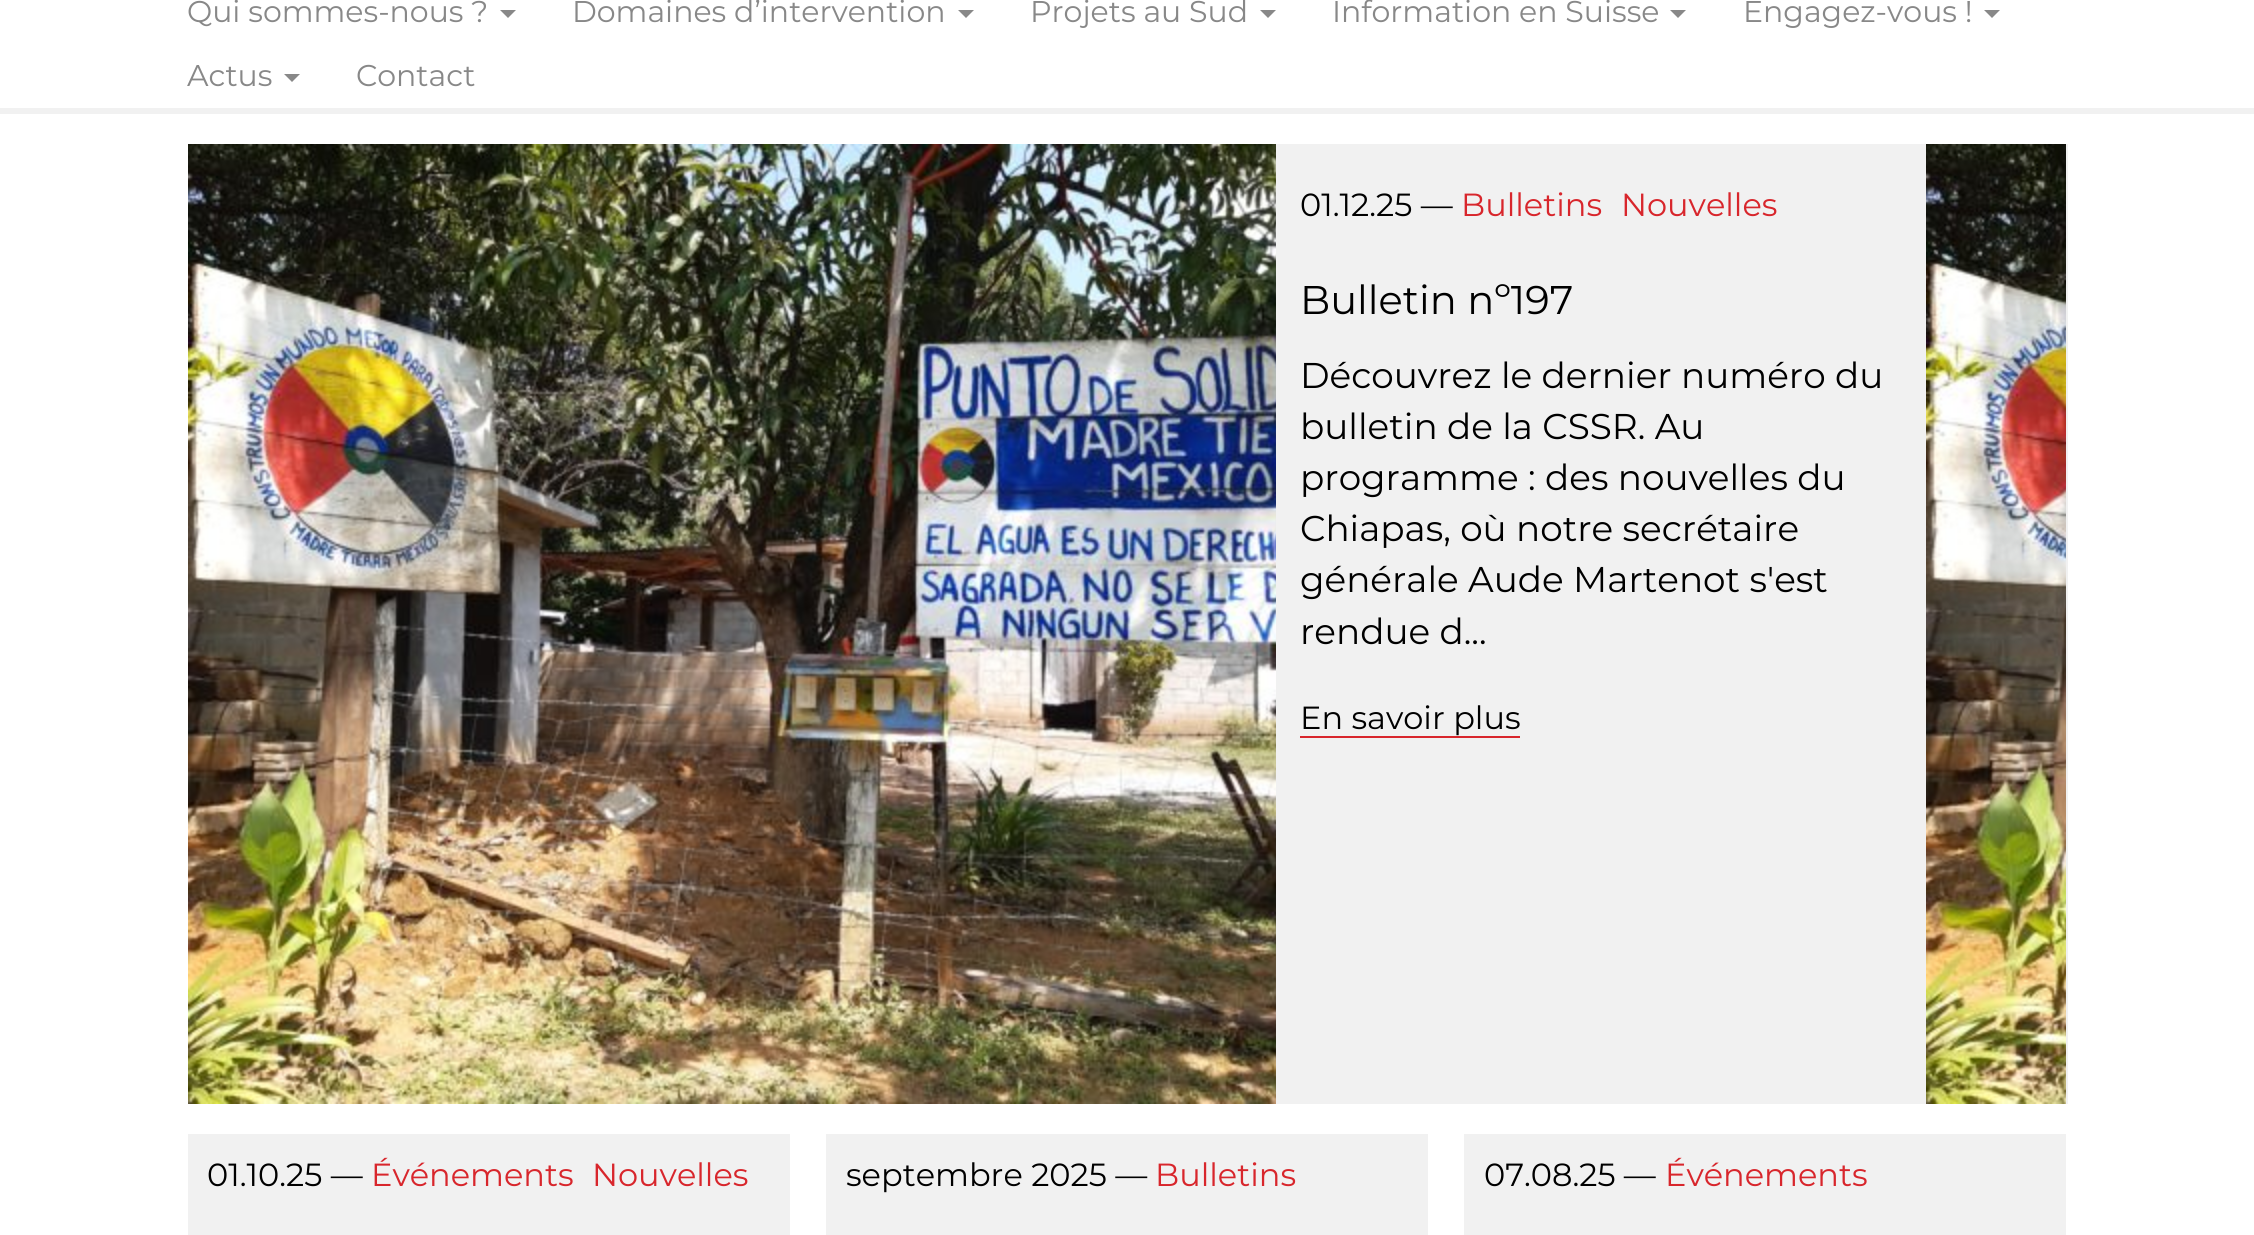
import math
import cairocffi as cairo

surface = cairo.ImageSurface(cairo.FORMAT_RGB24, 2254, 1235)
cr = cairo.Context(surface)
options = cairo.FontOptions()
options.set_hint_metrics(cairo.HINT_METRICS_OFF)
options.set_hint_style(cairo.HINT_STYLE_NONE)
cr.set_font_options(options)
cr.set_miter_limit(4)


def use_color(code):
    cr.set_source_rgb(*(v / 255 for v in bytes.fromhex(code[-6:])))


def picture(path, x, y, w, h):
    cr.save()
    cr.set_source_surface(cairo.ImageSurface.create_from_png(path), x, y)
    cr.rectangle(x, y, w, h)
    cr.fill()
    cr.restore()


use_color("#ffffff")
cr.paint()
use_color("#f1f1f1")
cr.rectangle(0, 108, 2254, 6)
cr.fill()
cr.select_font_face("Montserrat Thin")
cr.set_font_size(30)
use_color("#888888")
cr.move_to(187, 22)
cr.show_text("Qui sommes-nous ?")
cr.new_path()
cr.move_to(500, 10)
cr.line_to(516, 10)
cr.line_to(508, 18)
cr.close_path()
cr.fill()
cr.move_to(572, 22)
cr.show_text("Domaines d’intervention")
cr.new_path()
cr.move_to(958, 10)
cr.line_to(974, 10)
cr.line_to(966, 18)
cr.close_path()
cr.fill()
cr.move_to(1030, 22)
cr.show_text("Projets au Sud")
cr.new_path()
cr.move_to(1260, 10)
cr.line_to(1276, 10)
cr.line_to(1268, 18)
cr.close_path()
cr.fill()
cr.move_to(1332, 22)
cr.show_text("Information en Suisse")
cr.new_path()
cr.move_to(1670, 10)
cr.line_to(1686, 10)
cr.line_to(1678, 18)
cr.close_path()
cr.fill()
cr.move_to(1743, 22)
cr.show_text("Engagez-vous !")
cr.new_path()
cr.move_to(1984, 10)
cr.line_to(2000, 10)
cr.line_to(1992, 18)
cr.close_path()
cr.fill()
cr.move_to(187, 86)
cr.show_text("Actus")
cr.new_path()
cr.move_to(284, 74)
cr.line_to(300, 74)
cr.line_to(292, 82)
cr.close_path()
cr.fill()
cr.move_to(356, 86)
cr.show_text("Contact")
use_color("#f1f1f1")
cr.rectangle(1276, 144, 792, 960)
cr.fill()
picture("img1.png", 188, 144, 1088, 960)
cr.set_font_size(32)
use_color("#000000")
cr.move_to(1300, 216)
cr.show_text("01.12.25 —")
use_color("#d8262c")
cr.move_to(1461, 216)
cr.show_text("Bulletins")
cr.move_to(1621, 216)
cr.show_text("Nouvelles")
cr.set_font_size(40)
use_color("#000000")
cr.move_to(1300, 314)
cr.show_text("Bulletin nº197")
cr.set_font_size(35.8)
cr.move_to(1300, 388)
cr.show_text("Découvrez le dernier numéro du")
cr.move_to(1300, 439)
cr.show_text("bulletin de la CSSR. Au")
cr.move_to(1300, 490)
cr.show_text("programme : des nouvelles du")
cr.move_to(1300, 541)
cr.show_text("Chiapas, où notre secrétaire")
cr.move_to(1300, 592)
cr.show_text("générale Aude Martenot s'est")
cr.move_to(1300, 644)
cr.show_text("rendue d...")
cr.set_font_size(32)
cr.move_to(1300, 729)
cr.show_text("En savoir plus")
use_color("#d8262c")
cr.rectangle(1300, 736, 220, 2)
cr.fill()
picture("img2.png", 1926, 144, 140, 960)
use_color("#f1f1f1")
cr.rectangle(188, 1134, 602, 101)
cr.fill()
use_color("#000000")
cr.move_to(207, 1186)
cr.show_text("01.10.25 —")
use_color("#d8262c")
cr.move_to(371, 1186)
cr.show_text("Événements")
cr.move_to(592, 1186)
cr.show_text("Nouvelles")
use_color("#f1f1f1")
cr.rectangle(826, 1134, 602, 101)
cr.fill()
use_color("#000000")
cr.move_to(846, 1186)
cr.show_text("septembre 2025 —")
use_color("#d8262c")
cr.move_to(1155, 1186)
cr.show_text("Bulletins")
use_color("#f1f1f1")
cr.rectangle(1464, 1134, 602, 101)
cr.fill()
use_color("#000000")
cr.move_to(1484, 1186)
cr.show_text("07.08.25 —")
use_color("#d8262c")
cr.move_to(1665, 1186)
cr.show_text("Événements")
surface.write_to_png("result.png")
